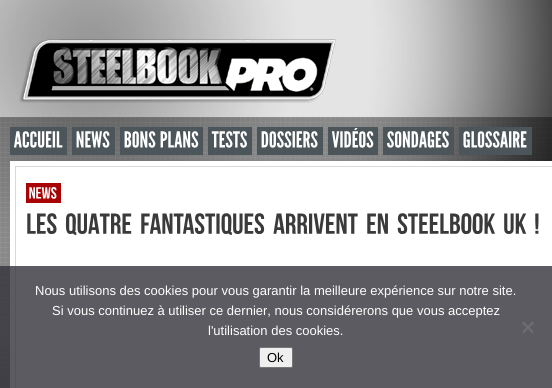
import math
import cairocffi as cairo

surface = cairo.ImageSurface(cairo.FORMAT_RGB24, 552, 388)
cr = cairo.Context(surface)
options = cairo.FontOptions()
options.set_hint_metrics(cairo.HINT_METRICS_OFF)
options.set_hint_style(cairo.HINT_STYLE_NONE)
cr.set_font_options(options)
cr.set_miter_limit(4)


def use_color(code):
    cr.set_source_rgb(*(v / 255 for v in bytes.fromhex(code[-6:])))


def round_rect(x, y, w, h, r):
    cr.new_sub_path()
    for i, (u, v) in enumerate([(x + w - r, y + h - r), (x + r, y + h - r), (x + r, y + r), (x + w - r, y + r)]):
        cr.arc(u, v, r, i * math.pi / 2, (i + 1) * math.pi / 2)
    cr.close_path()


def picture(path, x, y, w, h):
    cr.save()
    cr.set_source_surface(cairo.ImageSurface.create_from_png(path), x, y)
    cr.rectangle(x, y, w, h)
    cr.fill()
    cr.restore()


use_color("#ffffff")
cr.paint()
picture("img1.png", 0, 0, 552, 388)
picture("img2.png", 19, 39, 317, 64)
picture("img3.png", 0, 117, 552, 271)
use_color("#4c5559")
cr.rectangle(10, 127, 57, 28)
cr.fill()
picture("img4.png", 14, 131, 49, 17)
cr.rectangle(72, 127, 43, 28)
cr.fill()
picture("img5.png", 76, 131, 34, 17)
cr.rectangle(120, 127, 83, 28)
cr.fill()
picture("img6.png", 124, 131, 32, 17)
picture("img7.png", 160, 131, 39, 17)
cr.rectangle(208, 127, 44, 28)
cr.fill()
picture("img8.png", 211, 131, 36, 17)
cr.rectangle(257, 127, 66, 28)
cr.fill()
picture("img9.png", 261, 131, 57, 17)
cr.rectangle(328, 127, 50, 28)
cr.fill()
picture("img10.png", 332, 128, 42, 20)
cr.rectangle(383, 127, 71, 28)
cr.fill()
picture("img11.png", 387, 131, 62, 17)
cr.rectangle(459, 127, 73, 28)
cr.fill()
picture("img12.png", 463, 131, 64, 17)
use_color("#ffffff")
cr.rectangle(10, 161, 542, 227)
cr.fill()
cr.rectangle(15.5, 166.5, 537, 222)
use_color("#d9d9d9")
cr.set_line_width(1)
cr.stroke()
use_color("#a90404")
cr.rectangle(26, 183, 35, 20)
cr.fill()
picture("img13.png", 29, 187, 28, 12)
picture("img14.png", 27, 213, 30, 21)
picture("img15.png", 65, 213, 67, 22)
picture("img16.png", 141, 213, 124, 22)
picture("img17.png", 273, 213, 85, 21)
picture("img18.png", 367, 213, 21, 21)
picture("img19.png", 397, 213, 98, 21)
picture("img20.png", 504, 213, 23, 21)
picture("img21.png", 535, 213, 4, 21)
cr.set_source_rgba(0.196, 0.196, 0.227, 0.8)
cr.rectangle(0, 266, 552, 122)
cr.fill()
cr.select_font_face("Liberation Sans")
cr.set_font_size(13)
use_color("#ffffff")
cr.move_to(35, 295)
cr.show_text("Nous utilisons des cookies pour vous garantir la meilleure expérience sur notre site.")
cr.move_to(52, 315)
cr.show_text("Si vous continuez à utiliser ce dernier, nous considérerons que vous acceptez")
cr.move_to(208, 335)
cr.show_text("l'utilisation des cookies.")
use_color("#6e6e71")
cr.new_path()
cr.move_to(532.5, 321.5)
cr.line_to(534, 323)
cr.line_to(523.5, 333.5)
cr.line_to(522, 332)
cr.close_path()
cr.fill()
cr.new_path()
cr.move_to(522, 323)
cr.line_to(523.5, 321.5)
cr.line_to(534, 332)
cr.line_to(532.5, 333.5)
cr.close_path()
cr.fill()
use_color("#efefef")
round_rect(259.5, 347.5, 33, 20, 1.5)
cr.fill_preserve()
use_color("#767676")
cr.stroke()
use_color("#000000")
cr.move_to(267, 362)
cr.show_text("Ok")
surface.write_to_png("result.png")
